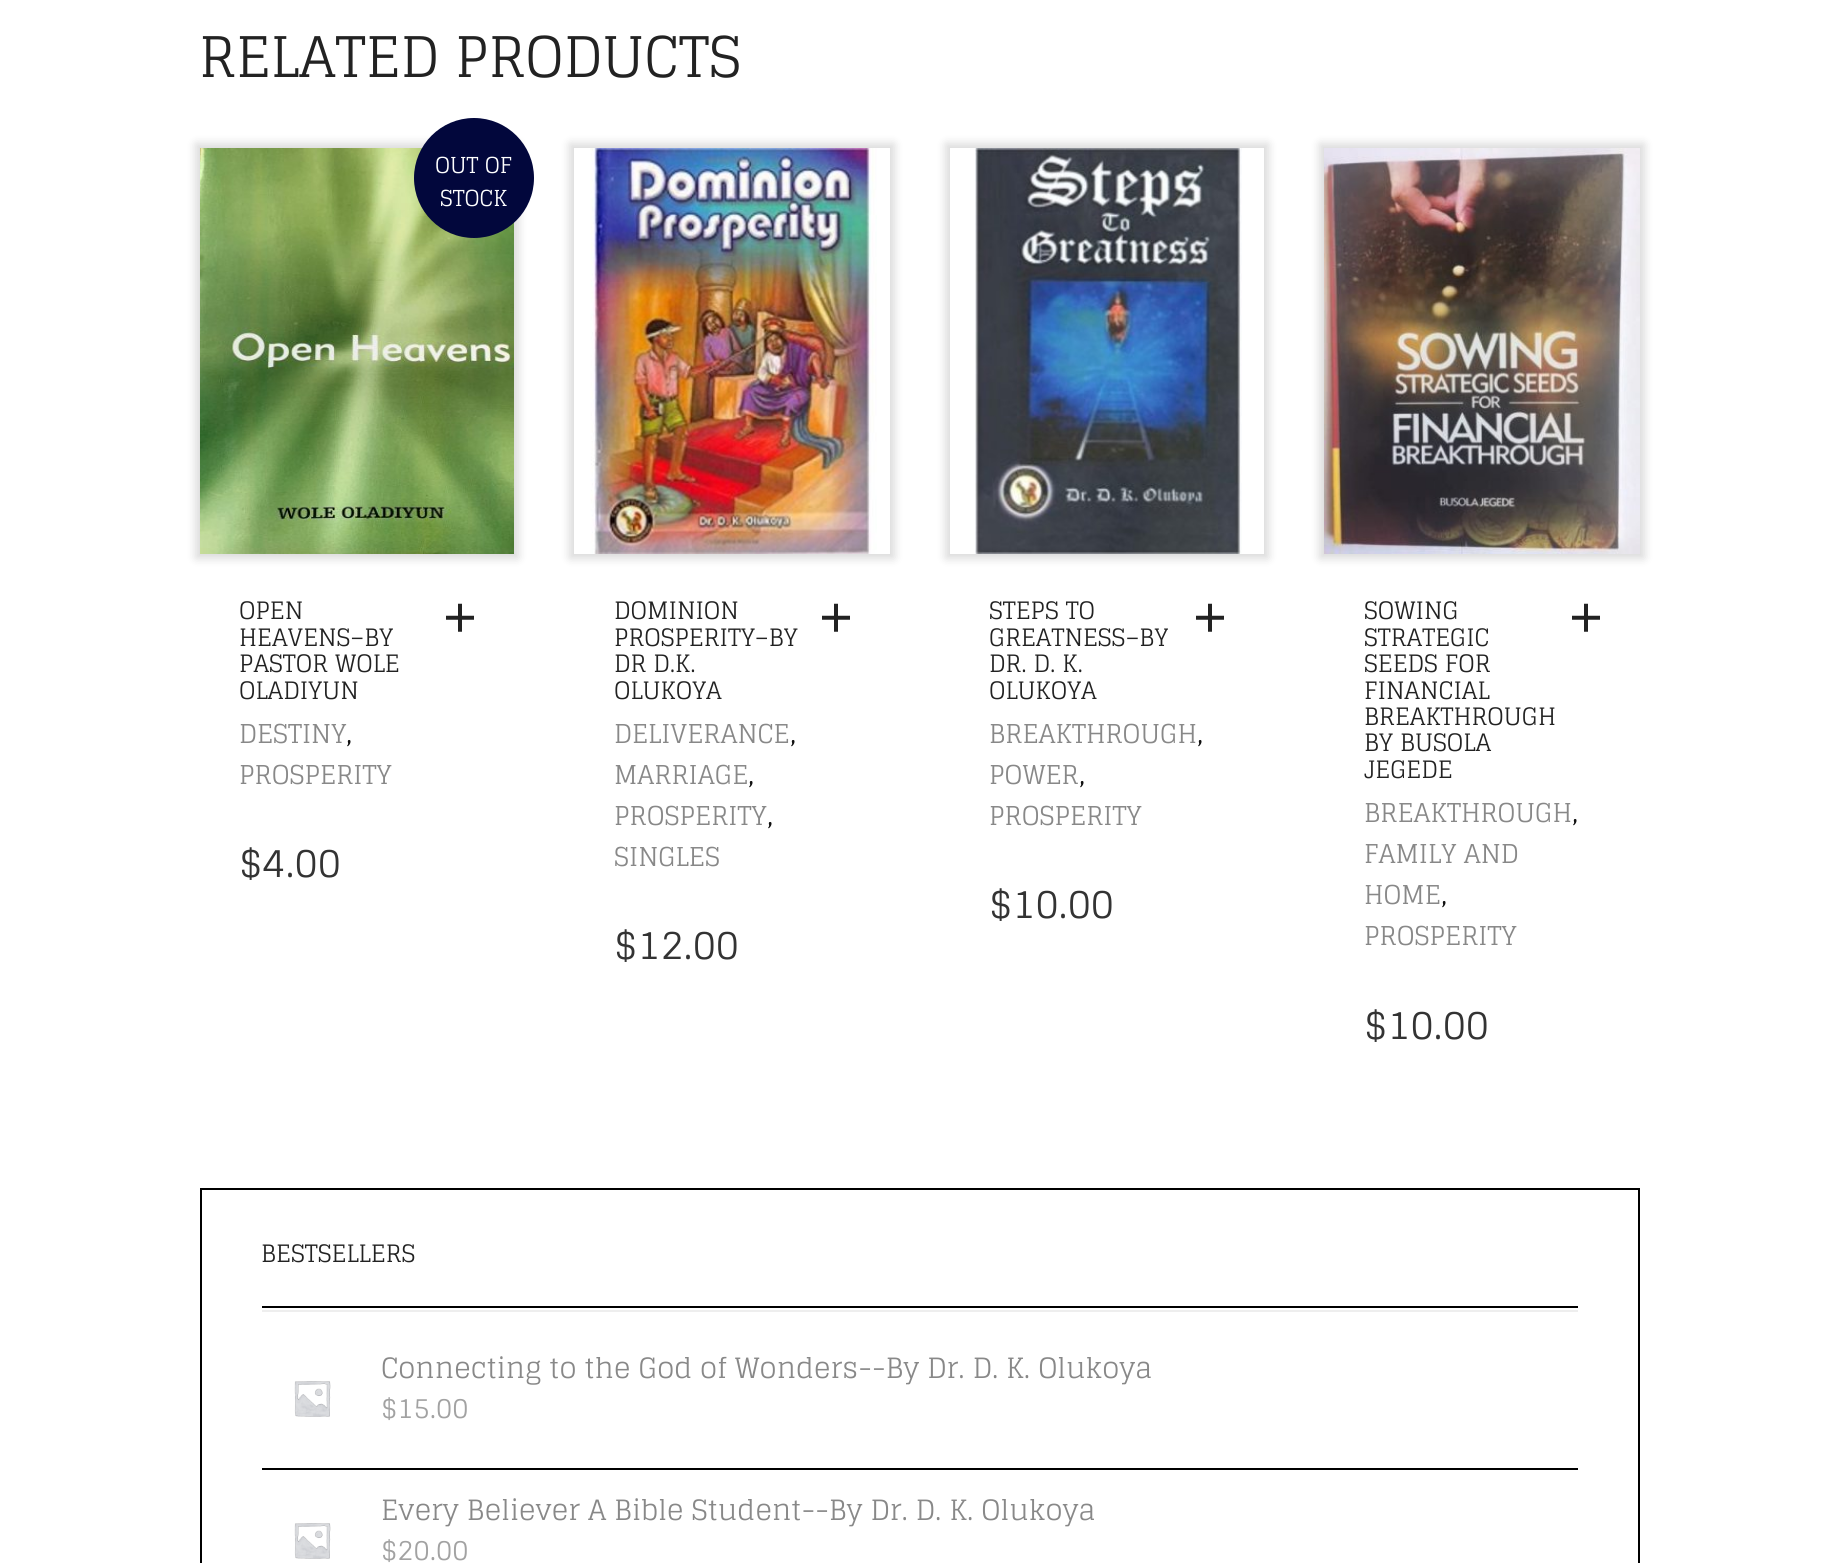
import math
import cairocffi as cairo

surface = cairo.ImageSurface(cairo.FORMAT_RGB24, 1837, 1563)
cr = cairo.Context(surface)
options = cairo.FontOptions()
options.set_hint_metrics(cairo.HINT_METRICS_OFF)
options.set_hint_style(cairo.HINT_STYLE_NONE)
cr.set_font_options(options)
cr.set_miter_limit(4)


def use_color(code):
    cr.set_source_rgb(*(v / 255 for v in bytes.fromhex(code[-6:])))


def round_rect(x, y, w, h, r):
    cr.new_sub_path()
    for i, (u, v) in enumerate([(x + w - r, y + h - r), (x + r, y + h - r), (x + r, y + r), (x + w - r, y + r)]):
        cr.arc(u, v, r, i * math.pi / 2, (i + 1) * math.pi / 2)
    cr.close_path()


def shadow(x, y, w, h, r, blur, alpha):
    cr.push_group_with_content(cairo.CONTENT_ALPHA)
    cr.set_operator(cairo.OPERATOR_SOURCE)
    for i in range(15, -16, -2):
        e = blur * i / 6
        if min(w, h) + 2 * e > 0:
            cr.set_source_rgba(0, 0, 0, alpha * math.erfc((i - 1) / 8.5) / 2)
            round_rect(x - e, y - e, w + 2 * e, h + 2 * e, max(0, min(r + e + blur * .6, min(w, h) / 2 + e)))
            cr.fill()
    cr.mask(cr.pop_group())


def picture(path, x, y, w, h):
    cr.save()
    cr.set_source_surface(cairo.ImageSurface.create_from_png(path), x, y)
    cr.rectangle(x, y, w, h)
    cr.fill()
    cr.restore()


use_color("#ffffff")
cr.paint()
cr.select_font_face("Glegoo")
cr.set_font_size(56)
use_color("#222222")
cr.move_to(199, 77)
cr.show_text("RELATED PRODUCTS")
use_color("#000000")
shadow(196, 144, 322, 414, 0, 5, 0.16)
picture("img1.png", 200, 148, 314, 406)
use_color("#02073c")
cr.arc(474, 178, 60, 0, 2 * math.pi)
cr.fill()
cr.set_font_size(22)
use_color("#ffffff")
cr.move_to(435, 173)
cr.show_text("OUT OF")
cr.move_to(440, 206)
cr.show_text("STOCK")
cr.set_font_size(24)
use_color("#222222")
cr.move_to(239, 619)
cr.show_text("OPEN")
cr.move_to(239, 646)
cr.show_text("HEAVENS–BY")
cr.move_to(239, 672)
cr.show_text("PASTOR WOLE")
cr.move_to(239, 699)
cr.show_text("OLADIYUN")
picture("img2.png", 446, 603, 28, 29)
cr.set_font_size(26)
use_color("#888888")
cr.move_to(239, 743)
cr.show_text("DESTINY")
cr.set_font_size(28)
use_color("#111111")
cr.move_to(346, 743)
cr.show_text(",")
cr.set_font_size(26)
use_color("#888888")
cr.move_to(239, 784)
cr.show_text("PROSPERITY")
cr.set_font_size(40)
use_color("#333333")
cr.move_to(239, 877)
cr.show_text("$4.00")
cr.save()
cr.set_fill_rule(cairo.FILL_RULE_EVEN_ODD)
cr.new_path()
cr.move_to(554, 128)
cr.line_to(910, 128)
cr.line_to(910, 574)
cr.line_to(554, 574)
cr.close_path()
cr.move_to(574, 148)
cr.line_to(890, 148)
cr.line_to(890, 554)
cr.line_to(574, 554)
cr.close_path()
cr.clip()
use_color("#000000")
shadow(570, 144, 324, 414, 0, 5, 0.16)
cr.restore()
picture("img3.png", 590, 148, 287, 406)
cr.set_font_size(24)
use_color("#222222")
cr.move_to(614, 619)
cr.show_text("DOMINION")
cr.move_to(614, 646)
cr.show_text("PROSPERITY–BY")
cr.move_to(614, 672)
cr.show_text("DR D.K.")
cr.move_to(614, 699)
cr.show_text("OLUKOYA")
picture("img2.png", 822, 603, 28, 29)
cr.set_font_size(26)
use_color("#888888")
cr.move_to(614, 743)
cr.show_text("DELIVERANCE")
cr.set_font_size(28)
use_color("#111111")
cr.move_to(790, 743)
cr.show_text(",")
cr.set_font_size(26)
use_color("#888888")
cr.move_to(614, 784)
cr.show_text("MARRIAGE")
cr.set_font_size(28)
use_color("#111111")
cr.move_to(748, 784)
cr.show_text(",")
cr.set_font_size(26)
use_color("#888888")
cr.move_to(614, 825)
cr.show_text("PROSPERITY")
cr.set_font_size(28)
use_color("#111111")
cr.move_to(767, 825)
cr.show_text(",")
cr.set_font_size(26)
use_color("#888888")
cr.move_to(614, 866)
cr.show_text("SINGLES")
cr.set_font_size(40)
use_color("#333333")
cr.move_to(614, 959)
cr.show_text("$12.00")
cr.save()
cr.set_fill_rule(cairo.FILL_RULE_EVEN_ODD)
cr.new_path()
cr.move_to(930, 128)
cr.line_to(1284, 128)
cr.line_to(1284, 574)
cr.line_to(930, 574)
cr.close_path()
cr.move_to(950, 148)
cr.line_to(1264, 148)
cr.line_to(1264, 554)
cr.line_to(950, 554)
cr.close_path()
cr.clip()
use_color("#000000")
shadow(946, 144, 322, 414, 0, 5, 0.16)
cr.restore()
picture("img4.png", 975, 148, 267, 406)
cr.set_font_size(24)
use_color("#222222")
cr.move_to(989, 619)
cr.show_text("STEPS TO")
cr.move_to(989, 646)
cr.show_text("GREATNESS–BY")
cr.move_to(989, 672)
cr.show_text("DR. D. K.")
cr.move_to(989, 699)
cr.show_text("OLUKOYA")
picture("img2.png", 1196, 603, 28, 29)
cr.set_font_size(26)
use_color("#888888")
cr.move_to(989, 743)
cr.show_text("BREAKTHROUGH")
cr.set_font_size(28)
use_color("#111111")
cr.move_to(1197, 743)
cr.show_text(",")
cr.set_font_size(26)
use_color("#888888")
cr.move_to(989, 784)
cr.show_text("POWER")
cr.set_font_size(28)
use_color("#111111")
cr.move_to(1079, 784)
cr.show_text(",")
cr.set_font_size(26)
use_color("#888888")
cr.move_to(989, 825)
cr.show_text("PROSPERITY")
cr.set_font_size(40)
use_color("#333333")
cr.move_to(989, 918)
cr.show_text("$10.00")
use_color("#000000")
shadow(1320, 144, 324, 414, 0, 5, 0.16)
picture("img5.png", 1324, 148, 316, 406)
cr.set_font_size(24)
use_color("#222222")
cr.move_to(1364, 619)
cr.show_text("SOWING")
cr.move_to(1364, 646)
cr.show_text("STRATEGIC")
cr.move_to(1364, 672)
cr.show_text("SEEDS FOR")
cr.move_to(1364, 699)
cr.show_text("FINANCIAL")
cr.move_to(1364, 725)
cr.show_text("BREAKTHROUGH")
cr.move_to(1364, 751)
cr.show_text("BY BUSOLA")
cr.move_to(1364, 778)
cr.show_text("JEGEDE")
picture("img2.png", 1572, 603, 28, 29)
cr.set_font_size(26)
use_color("#888888")
cr.move_to(1364, 822)
cr.show_text("BREAKTHROUGH")
cr.set_font_size(28)
use_color("#111111")
cr.move_to(1572, 822)
cr.show_text(",")
cr.set_font_size(26)
use_color("#888888")
cr.move_to(1364, 863)
cr.show_text("FAMILY AND")
cr.move_to(1364, 904)
cr.show_text("HOME")
cr.set_font_size(28)
use_color("#111111")
cr.move_to(1441, 904)
cr.show_text(",")
cr.set_font_size(26)
use_color("#888888")
cr.move_to(1364, 945)
cr.show_text("PROSPERITY")
cr.set_font_size(40)
use_color("#333333")
cr.move_to(1364, 1039)
cr.show_text("$10.00")
cr.rectangle(201, 1189, 1438, 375)
use_color("#000000")
cr.stroke()
use_color("#eeeeee")
cr.rectangle(262, 1310, 1316, 2)
cr.fill()
use_color("#000000")
cr.rectangle(262, 1306, 1316, 2)
cr.fill()
cr.set_font_size(24)
use_color("#222222")
cr.move_to(261, 1262)
cr.show_text("BESTSELLERS")
use_color("#000000")
cr.rectangle(262, 1468, 1316, 2)
cr.fill()
cr.set_font_size(28)
use_color("#888888")
cr.move_to(381, 1378)
cr.show_text("Connecting to the God of Wonders--By Dr. D. K. Olukoya")
picture("img6.png", 294, 1381, 37, 36)
use_color("#a2a2a2")
cr.move_to(381, 1418)
cr.show_text("$15.00")
use_color("#888888")
cr.move_to(381, 1520)
cr.show_text("Every Believer A Bible Student--By Dr. D. K. Olukoya")
picture("img6.png", 294, 1523, 37, 36)
use_color("#a2a2a2")
cr.move_to(381, 1560)
cr.show_text("$20.00")
surface.write_to_png("result.png")
